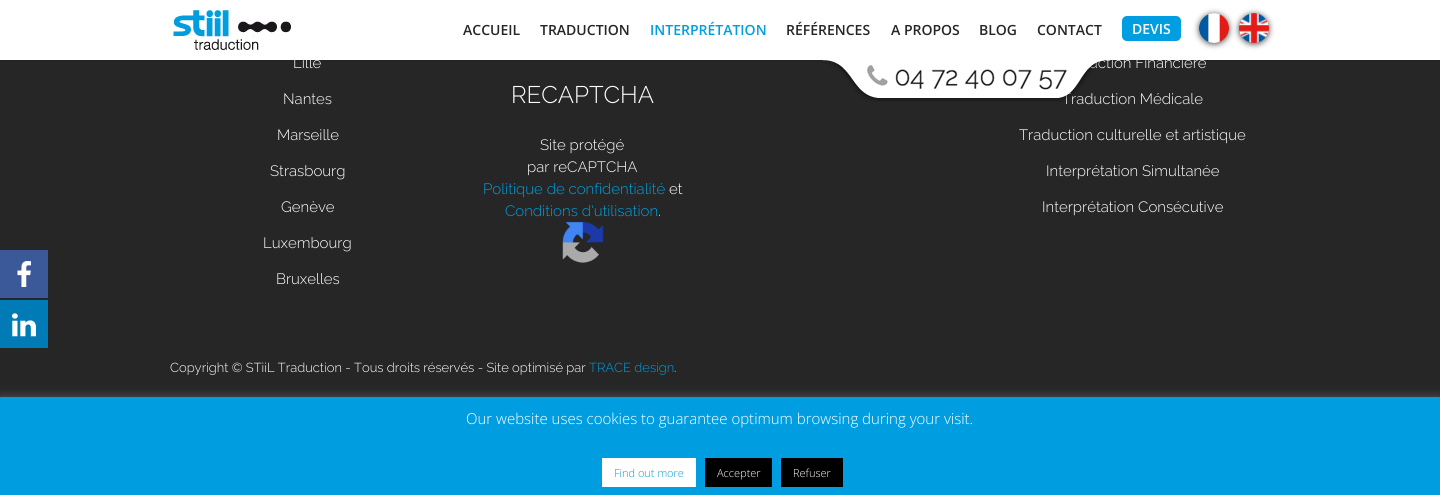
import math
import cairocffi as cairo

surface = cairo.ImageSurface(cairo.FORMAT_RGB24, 1440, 495)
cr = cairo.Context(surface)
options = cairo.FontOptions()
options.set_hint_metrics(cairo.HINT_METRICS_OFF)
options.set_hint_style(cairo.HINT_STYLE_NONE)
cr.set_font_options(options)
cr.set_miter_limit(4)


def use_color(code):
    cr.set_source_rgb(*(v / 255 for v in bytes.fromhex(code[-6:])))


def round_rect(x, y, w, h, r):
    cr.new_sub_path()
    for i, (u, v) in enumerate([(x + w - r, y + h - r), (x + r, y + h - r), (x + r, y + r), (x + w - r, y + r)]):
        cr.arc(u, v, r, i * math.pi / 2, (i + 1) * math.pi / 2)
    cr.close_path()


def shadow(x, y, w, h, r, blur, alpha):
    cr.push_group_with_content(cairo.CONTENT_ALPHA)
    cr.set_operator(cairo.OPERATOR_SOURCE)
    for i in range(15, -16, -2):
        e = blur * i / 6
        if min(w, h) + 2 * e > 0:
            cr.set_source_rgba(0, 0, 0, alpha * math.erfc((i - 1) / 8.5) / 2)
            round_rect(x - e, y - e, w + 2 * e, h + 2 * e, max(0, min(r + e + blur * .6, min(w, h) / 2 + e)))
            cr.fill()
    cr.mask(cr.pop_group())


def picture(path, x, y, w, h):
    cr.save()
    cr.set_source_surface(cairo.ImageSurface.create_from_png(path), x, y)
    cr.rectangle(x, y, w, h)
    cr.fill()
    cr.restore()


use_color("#262626")
cr.paint()
use_color("#3b5998")
cr.rectangle(0, 250, 48, 48)
cr.fill()
picture("img1.png", 17, 261, 14, 26)
use_color("#007bb6")
cr.rectangle(0, 300, 48, 48)
cr.fill()
picture("img2.png", 12, 313, 24, 24)
use_color("#000000")
shadow(0, 0, 1440, 60, 0, 1.5, 0.2)
use_color("#ffffff")
cr.rectangle(0, 0, 1440, 60)
cr.fill()
picture("img3.png", 173, 10, 118, 40)
cr.select_font_face("Open Sans SemiBold")
cr.set_font_size(14)
use_color("#262626")
cr.move_to(463, 35)
cr.show_text("ACCUEIL")
cr.move_to(540, 35)
cr.show_text("TRADUCTION")
use_color("#009ee0")
cr.move_to(650, 35)
cr.show_text("INTERPRÉTATION")
use_color("#262626")
cr.move_to(786, 35)
cr.show_text("RÉFÉRENCES")
cr.move_to(891, 35)
cr.show_text("A PROPOS")
cr.move_to(979, 35)
cr.show_text("BLOG")
cr.move_to(1037, 35)
cr.show_text("CONTACT")
use_color("#009ee0")
round_rect(1122, 16, 59, 25, 5)
cr.fill()
use_color("#ffffff")
cr.move_to(1132, 34)
cr.show_text("DEVIS")
use_color("#555555")
shadow(1199, 14, 30, 30, 15, 3, 1)
picture("img4.png", 1199, 13, 30, 30)
shadow(1239, 14, 30, 30, 15, 3, 1)
picture("img5.png", 1239, 13, 30, 30)
cr.select_font_face("Raleway Light")
cr.set_font_size(15)
use_color("#ffffff")
cr.move_to(1089, 68)
cr.show_text("uction Financière")
cr.move_to(1062, 104)
cr.show_text("Traduction Médicale")
picture("img6.png", 822, 60, 288, 42)
cr.move_to(293, 68)
cr.show_text("Lille")
cr.move_to(283, 104)
cr.show_text("Nantes")
cr.move_to(277, 140)
cr.show_text("Marseille")
cr.move_to(270, 176)
cr.show_text("Strasbourg")
cr.move_to(281, 212)
cr.show_text("Genève")
cr.move_to(263, 248)
cr.show_text("Luxembourg")
cr.move_to(276, 284)
cr.show_text("Bruxelles")
cr.set_font_size(24)
cr.move_to(511, 103)
cr.show_text("RECAPTCHA")
cr.set_font_size(15)
cr.move_to(540, 150)
cr.show_text("Site protégé")
cr.move_to(527, 172)
cr.show_text("par reCAPTCHA")
use_color("#009ee0")
cr.move_to(483, 194)
cr.show_text("Politique de confidentialité")
use_color("#ffffff")
cr.move_to(669, 194)
cr.show_text("et")
use_color("#009ee0")
cr.move_to(505, 216)
cr.show_text("Conditions d'utilisation")
use_color("#ffffff")
cr.move_to(658, 216)
cr.show_text(".")
picture("img7.png", 562, 222, 42, 41)
cr.move_to(1019, 140)
cr.show_text("Traduction culturelle et artistique")
cr.move_to(1046, 176)
cr.show_text("Interprétation Simultanée")
cr.move_to(1042, 212)
cr.show_text("Interprétation Consécutive")
cr.set_font_size(13)
cr.move_to(170, 372)
cr.show_text("Copyright © STiiL Traduction - Tous droits réservés - Site optimisé par")
use_color("#009ee0")
cr.move_to(589, 372)
cr.show_text("TRACE design")
use_color("#ffffff")
cr.move_to(674, 372)
cr.show_text(".")
use_color("#acabab")
shadow(0, 396, 1440, 98, 0, 5, 0.3)
use_color("#009ee0")
cr.rectangle(0, 397, 1440, 98)
cr.fill()
cr.select_font_face("Open Sans Light")
cr.set_font_size(15)
use_color("#ffffff")
cr.move_to(466, 424)
cr.show_text("Our website uses cookies to guarantee optimum browsing during your visit.")
cr.rectangle(602, 458, 94, 29)
cr.fill()
cr.set_font_size(11)
use_color("#009ee0")
cr.move_to(614, 477)
cr.show_text("Find out more")
use_color("#000000")
cr.rectangle(705, 458, 67, 29)
cr.fill()
use_color("#ffffff")
cr.move_to(717, 477)
cr.show_text("Accepter")
use_color("#000000")
cr.rectangle(781, 458, 62, 29)
cr.fill()
use_color("#ffffff")
cr.move_to(793, 477)
cr.show_text("Refuser")
surface.write_to_png("result.png")
